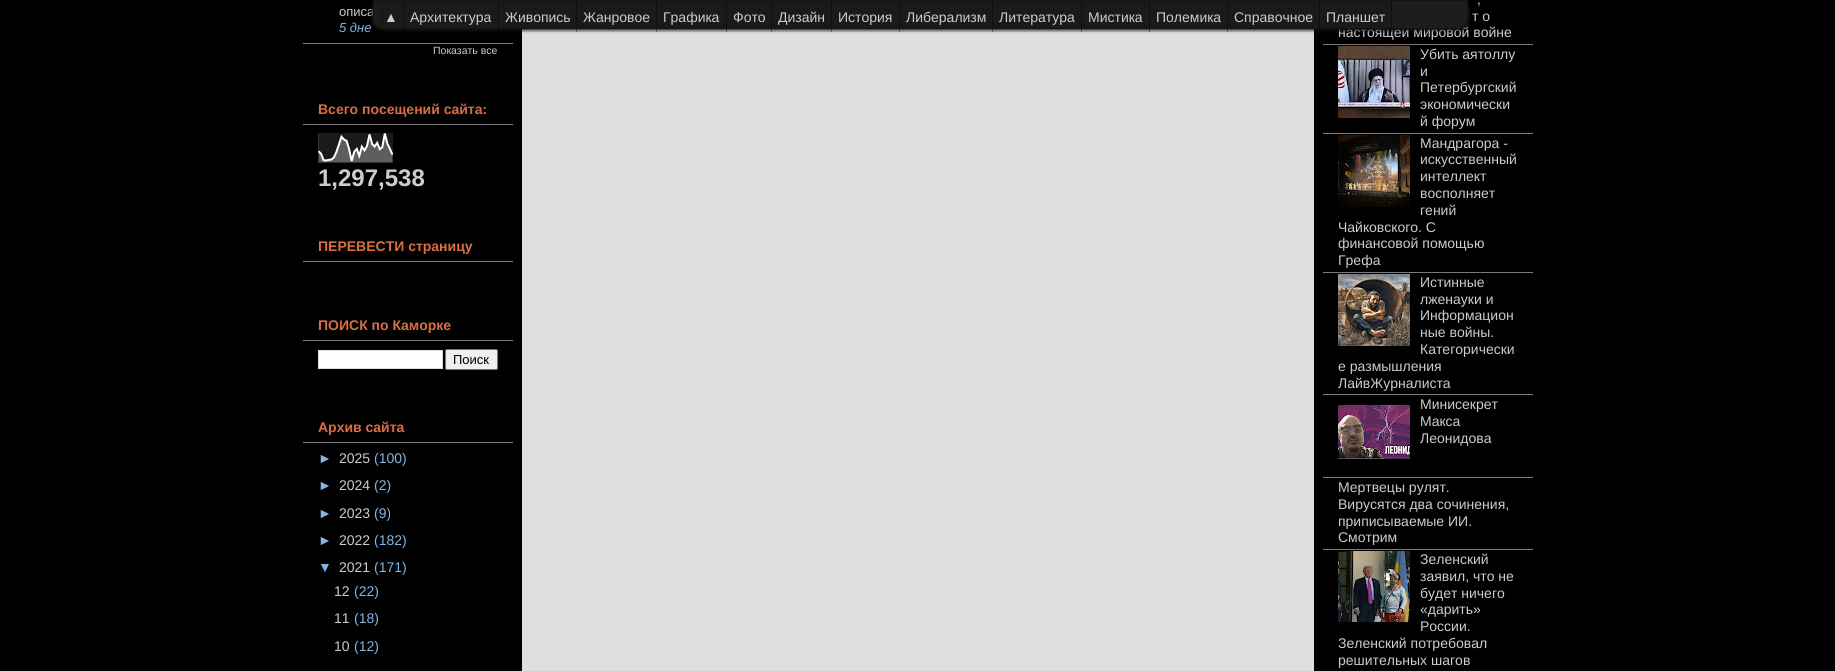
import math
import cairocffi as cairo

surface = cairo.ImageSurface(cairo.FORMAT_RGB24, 1835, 671)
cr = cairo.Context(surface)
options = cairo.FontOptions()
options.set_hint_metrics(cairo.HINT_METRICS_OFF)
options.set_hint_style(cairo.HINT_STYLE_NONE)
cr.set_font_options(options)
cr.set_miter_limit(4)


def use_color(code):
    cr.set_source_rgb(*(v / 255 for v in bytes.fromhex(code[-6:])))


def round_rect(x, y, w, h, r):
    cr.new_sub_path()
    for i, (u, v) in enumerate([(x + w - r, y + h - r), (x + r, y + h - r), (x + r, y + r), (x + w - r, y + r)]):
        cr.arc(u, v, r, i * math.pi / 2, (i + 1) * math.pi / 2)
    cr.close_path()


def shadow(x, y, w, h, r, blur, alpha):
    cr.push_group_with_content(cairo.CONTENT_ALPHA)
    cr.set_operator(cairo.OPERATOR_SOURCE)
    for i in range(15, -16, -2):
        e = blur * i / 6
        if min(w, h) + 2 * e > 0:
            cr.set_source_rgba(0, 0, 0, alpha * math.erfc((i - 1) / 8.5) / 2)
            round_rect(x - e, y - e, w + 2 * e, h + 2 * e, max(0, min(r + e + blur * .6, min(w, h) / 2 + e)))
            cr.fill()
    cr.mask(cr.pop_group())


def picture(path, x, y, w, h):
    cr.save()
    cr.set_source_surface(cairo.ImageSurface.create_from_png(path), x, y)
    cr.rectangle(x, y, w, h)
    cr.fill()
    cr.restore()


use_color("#000000")
cr.paint()
use_color("#7b7979")
cr.rectangle(303, 43, 210, 1)
cr.fill()
cr.select_font_face("Liberation Sans")
cr.set_font_size(13)
use_color("#cccccc")
cr.move_to(339, 16)
cr.show_text("описа")
cr.select_font_face("Liberation Sans", cairo.FONT_SLANT_ITALIC)
use_color("#82b6e5")
cr.move_to(339, 32)
cr.show_text("5 дне")
cr.select_font_face("Liberation Sans")
cr.set_font_size(10.5)
use_color("#cccccc")
cr.move_to(433, 54)
cr.show_text("Показать все")
use_color("#7b7979")
cr.rectangle(303, 124, 210, 1)
cr.fill()
cr.select_font_face("Liberation Sans", cairo.FONT_SLANT_NORMAL, cairo.FONT_WEIGHT_BOLD)
cr.set_font_size(14)
use_color("#da6d43")
cr.move_to(318, 114)
cr.show_text("Всего посещений сайта:")
picture("img1.png", 318, 133, 75, 30)
cr.set_font_size(24)
use_color("#cccccc")
cr.move_to(318, 186)
cr.show_text("1,297,538")
use_color("#7b7979")
cr.rectangle(303, 261, 210, 1)
cr.fill()
cr.set_font_size(14)
use_color("#da6d43")
cr.move_to(318, 251)
cr.show_text("ПЕРЕВЕСТИ страницу")
use_color("#7b7979")
cr.rectangle(303, 340, 210, 1)
cr.fill()
use_color("#da6d43")
cr.move_to(318, 330)
cr.show_text("ПОИСК по Каморке")
use_color("#ffffff")
cr.rectangle(318.5, 350.5, 124, 18)
cr.fill_preserve()
use_color("#dddddd")
cr.set_line_width(1)
cr.stroke()
use_color("#efefef")
round_rect(445.5, 349.5, 52, 20, 1.5)
cr.fill_preserve()
use_color("#767676")
cr.stroke()
cr.select_font_face("Liberation Sans")
cr.set_font_size(13)
use_color("#000000")
cr.move_to(453, 364)
cr.show_text("Поиск")
use_color("#7b7979")
cr.rectangle(303, 442, 210, 1)
cr.fill()
cr.select_font_face("Liberation Sans", cairo.FONT_SLANT_NORMAL, cairo.FONT_WEIGHT_BOLD)
cr.set_font_size(14)
use_color("#da6d43")
cr.move_to(318, 432)
cr.show_text("Архив сайта")
cr.select_font_face("Liberation Sans")
use_color("#82b6e5")
cr.move_to(318, 463)
cr.show_text("►")
use_color("#cccccc")
cr.move_to(339, 463)
cr.show_text("2025")
use_color("#82b6e5")
cr.move_to(374, 463)
cr.show_text("(100)")
cr.move_to(318, 490)
cr.show_text("►")
use_color("#cccccc")
cr.move_to(339, 490)
cr.show_text("2024")
use_color("#82b6e5")
cr.move_to(374, 490)
cr.show_text("(2)")
cr.move_to(318, 518)
cr.show_text("►")
use_color("#cccccc")
cr.move_to(339, 518)
cr.show_text("2023")
use_color("#82b6e5")
cr.move_to(374, 518)
cr.show_text("(9)")
cr.move_to(318, 545)
cr.show_text("►")
use_color("#cccccc")
cr.move_to(339, 545)
cr.show_text("2022")
use_color("#82b6e5")
cr.move_to(374, 545)
cr.show_text("(182)")
cr.move_to(318, 572)
cr.show_text("▼")
use_color("#cccccc")
cr.move_to(339, 572)
cr.show_text("2021")
use_color("#82b6e5")
cr.move_to(374, 572)
cr.show_text("(171)")
use_color("#cccccc")
cr.move_to(334, 596)
cr.show_text("12")
use_color("#82b6e5")
cr.move_to(354, 596)
cr.show_text("(22)")
use_color("#cccccc")
cr.move_to(334, 623)
cr.show_text("11")
use_color("#82b6e5")
cr.move_to(354, 623)
cr.show_text("(18)")
use_color("#cccccc")
cr.move_to(334, 651)
cr.show_text("10")
use_color("#82b6e5")
cr.move_to(354, 651)
cr.show_text("(12)")
use_color("#dedede")
cr.rectangle(522, 29, 792, 642)
cr.fill()
use_color("#7b7979")
cr.rectangle(1323, 44, 210, 1)
cr.fill()
use_color("#cccccc")
cr.move_to(1477, 4)
cr.show_text(",")
cr.move_to(1472, 21)
cr.show_text("т о")
cr.move_to(1338, 37)
cr.show_text("настоящей мировой войне")
use_color("#7b7979")
cr.rectangle(1323, 133, 210, 1)
cr.fill()
picture("img2.png", 1338, 46, 72, 72)
use_color("#cccccc")
cr.move_to(1420, 59)
cr.show_text("Убить аятоллу")
cr.move_to(1420, 76)
cr.show_text("и")
cr.move_to(1420, 92)
cr.show_text("Петербургский")
cr.move_to(1420, 109)
cr.show_text("экономически")
cr.move_to(1420, 126)
cr.show_text("й форум")
use_color("#7b7979")
cr.rectangle(1323, 272, 210, 1)
cr.fill()
picture("img3.png", 1338, 135, 72, 72)
use_color("#cccccc")
cr.move_to(1420, 148)
cr.show_text("Мандрагора -")
cr.move_to(1420, 164)
cr.show_text("искусственный")
cr.move_to(1420, 181)
cr.show_text("интеллект")
cr.move_to(1420, 198)
cr.show_text("восполняет")
cr.move_to(1420, 215)
cr.show_text("гений")
cr.move_to(1338, 232)
cr.show_text("Чайковского. С")
cr.move_to(1338, 248)
cr.show_text("финансовой помощью")
cr.move_to(1338, 265)
cr.show_text("Грефа")
use_color("#7b7979")
cr.rectangle(1323, 394, 210, 1)
cr.fill()
picture("img4.png", 1338, 274, 72, 72)
use_color("#cccccc")
cr.move_to(1420, 287)
cr.show_text("Истинные")
cr.move_to(1420, 304)
cr.show_text("лженауки и")
cr.move_to(1420, 320)
cr.show_text("Информацион")
cr.move_to(1420, 337)
cr.show_text("ные войны.")
cr.move_to(1420, 354)
cr.show_text("Категорически")
cr.move_to(1338, 371)
cr.show_text("е размышления")
cr.move_to(1338, 388)
cr.show_text("ЛайвЖурналиста")
use_color("#7b7979")
cr.rectangle(1323, 477, 210, 1)
cr.fill()
picture("img5.png", 1338, 404, 72, 56)
use_color("#cccccc")
cr.move_to(1420, 409)
cr.show_text("Минисекрет")
cr.move_to(1420, 426)
cr.show_text("Макса")
cr.move_to(1420, 443)
cr.show_text("Леонидова")
use_color("#7b7979")
cr.rectangle(1323, 549, 210, 1)
cr.fill()
use_color("#cccccc")
cr.move_to(1338, 492)
cr.show_text("Мертвецы рулят.")
cr.move_to(1338, 509)
cr.show_text("Вирусятся два сочинения,")
cr.move_to(1338, 526)
cr.show_text("приписываемые ИИ.")
cr.move_to(1338, 542)
cr.show_text("Смотрим")
picture("img6.png", 1338, 551, 72, 72)
cr.move_to(1420, 564)
cr.show_text("Зеленский")
cr.move_to(1420, 581)
cr.show_text("заявил, что не")
cr.move_to(1420, 598)
cr.show_text("будет ничего")
cr.move_to(1420, 614)
cr.show_text("«дарить»")
cr.move_to(1420, 631)
cr.show_text("России.")
cr.move_to(1338, 648)
cr.show_text("Зеленский потребовал")
cr.move_to(1338, 665)
cr.show_text("решительных шагов")
use_color("#191919")
shadow(373, 0, 1095, 29, 10, 2, 1)
cr.new_path()
cr.move_to(373.5, 0.5)
cr.line_to(1467.5, 0.5)
cr.line_to(1467.5, 19)
cr.curve_to(1467.5, 24, 1463, 28.5, 1458, 28.5)
cr.line_to(383, 28.5)
cr.curve_to(378, 28.5, 373.5, 24, 373.5, 19)
cr.close_path()
cr.set_source_rgba(0, 0, 0, 0.3)
cr.stroke()
use_color("#191919")
shadow(373, 0, 1095, 29, 10, 2, 1)
use_color("#1d1d1d")
cr.new_path()
cr.move_to(373, 0)
cr.line_to(1468, 0)
cr.line_to(1468, 19)
cr.curve_to(1468, 24.5, 1463.5, 29, 1458, 29)
cr.line_to(383, 29)
cr.curve_to(377.5, 29, 373, 24.5, 373, 19)
cr.close_path()
cr.fill()
cr.new_path()
cr.move_to(373.5, 0.5)
cr.line_to(1467.5, 0.5)
cr.line_to(1467.5, 19)
cr.curve_to(1467.5, 24, 1463, 28.5, 1458, 28.5)
cr.line_to(383, 28.5)
cr.curve_to(378, 28.5, 373.5, 24, 373.5, 19)
cr.close_path()
cr.set_source_rgba(0, 0, 0, 0.3)
cr.stroke()
cr.set_source_rgba(0, 0, 0, 0.1)
cr.rectangle(378, 1, 26, 27)
cr.fill()
cr.set_source_rgba(0, 0, 0, 0.4)
cr.rectangle(403, 1, 1, 31)
cr.fill()
use_color("#cccccc")
cr.move_to(384, 22)
cr.show_text("▲")
cr.set_source_rgba(0, 0, 0, 0.1)
cr.rectangle(404, 1, 95, 27)
cr.fill()
cr.set_source_rgba(0, 0, 0, 0.4)
cr.rectangle(498, 1, 1, 31)
cr.fill()
use_color("#cccccc")
cr.move_to(410, 22)
cr.show_text("Архитектура")
cr.set_source_rgba(0, 0, 0, 0.1)
cr.rectangle(499, 1, 78, 31)
cr.fill()
cr.set_source_rgba(0, 0, 0, 0.4)
cr.rectangle(576, 1, 1, 31)
cr.fill()
use_color("#cccccc")
cr.move_to(505, 22)
cr.show_text("Живопись")
cr.set_source_rgba(0, 0, 0, 0.1)
cr.rectangle(577, 1, 80, 31)
cr.fill()
cr.set_source_rgba(0, 0, 0, 0.4)
cr.rectangle(656, 1, 1, 31)
cr.fill()
use_color("#cccccc")
cr.move_to(583, 22)
cr.show_text("Жанровое")
cr.set_source_rgba(0, 0, 0, 0.1)
cr.rectangle(657, 1, 70, 31)
cr.fill()
cr.set_source_rgba(0, 0, 0, 0.4)
cr.rectangle(726, 1, 1, 31)
cr.fill()
use_color("#cccccc")
cr.move_to(663, 22)
cr.show_text("Графика")
cr.set_source_rgba(0, 0, 0, 0.1)
cr.rectangle(727, 1, 45, 31)
cr.fill()
cr.set_source_rgba(0, 0, 0, 0.4)
cr.rectangle(771, 1, 1, 31)
cr.fill()
use_color("#cccccc")
cr.move_to(733, 22)
cr.show_text("Фото")
cr.set_source_rgba(0, 0, 0, 0.1)
cr.rectangle(772, 1, 60, 31)
cr.fill()
cr.set_source_rgba(0, 0, 0, 0.4)
cr.rectangle(831, 1, 1, 31)
cr.fill()
use_color("#cccccc")
cr.move_to(778, 22)
cr.show_text("Дизайн")
cr.set_source_rgba(0, 0, 0, 0.1)
cr.rectangle(832, 1, 68, 31)
cr.fill()
cr.set_source_rgba(0, 0, 0, 0.4)
cr.rectangle(899, 1, 1, 31)
cr.fill()
use_color("#cccccc")
cr.move_to(838, 22)
cr.show_text("История")
cr.set_source_rgba(0, 0, 0, 0.1)
cr.rectangle(900, 1, 93, 31)
cr.fill()
cr.set_source_rgba(0, 0, 0, 0.4)
cr.rectangle(992, 1, 1, 31)
cr.fill()
use_color("#cccccc")
cr.move_to(906, 22)
cr.show_text("Либерализм")
cr.set_source_rgba(0, 0, 0, 0.1)
cr.rectangle(993, 1, 89, 31)
cr.fill()
cr.set_source_rgba(0, 0, 0, 0.4)
cr.rectangle(1081, 1, 1, 31)
cr.fill()
use_color("#cccccc")
cr.move_to(999, 22)
cr.show_text("Литература")
cr.set_source_rgba(0, 0, 0, 0.1)
cr.rectangle(1082, 1, 68, 31)
cr.fill()
cr.set_source_rgba(0, 0, 0, 0.4)
cr.rectangle(1149, 1, 1, 31)
cr.fill()
use_color("#cccccc")
cr.move_to(1088, 22)
cr.show_text("Мистика")
cr.set_source_rgba(0, 0, 0, 0.1)
cr.rectangle(1150, 1, 78, 31)
cr.fill()
cr.set_source_rgba(0, 0, 0, 0.4)
cr.rectangle(1227, 1, 1, 31)
cr.fill()
use_color("#cccccc")
cr.move_to(1156, 22)
cr.show_text("Полемика")
cr.set_source_rgba(0, 0, 0, 0.1)
cr.rectangle(1228, 1, 92, 31)
cr.fill()
cr.set_source_rgba(0, 0, 0, 0.4)
cr.rectangle(1319, 1, 1, 31)
cr.fill()
use_color("#cccccc")
cr.move_to(1234, 22)
cr.show_text("Справочное")
cr.set_source_rgba(0, 0, 0, 0.1)
cr.rectangle(1320, 1, 72, 31)
cr.fill()
cr.set_source_rgba(0, 0, 0, 0.4)
cr.rectangle(1391, 1, 1, 31)
cr.fill()
use_color("#cccccc")
cr.move_to(1326, 22)
cr.show_text("Планшет")
surface.write_to_png("result.png")
